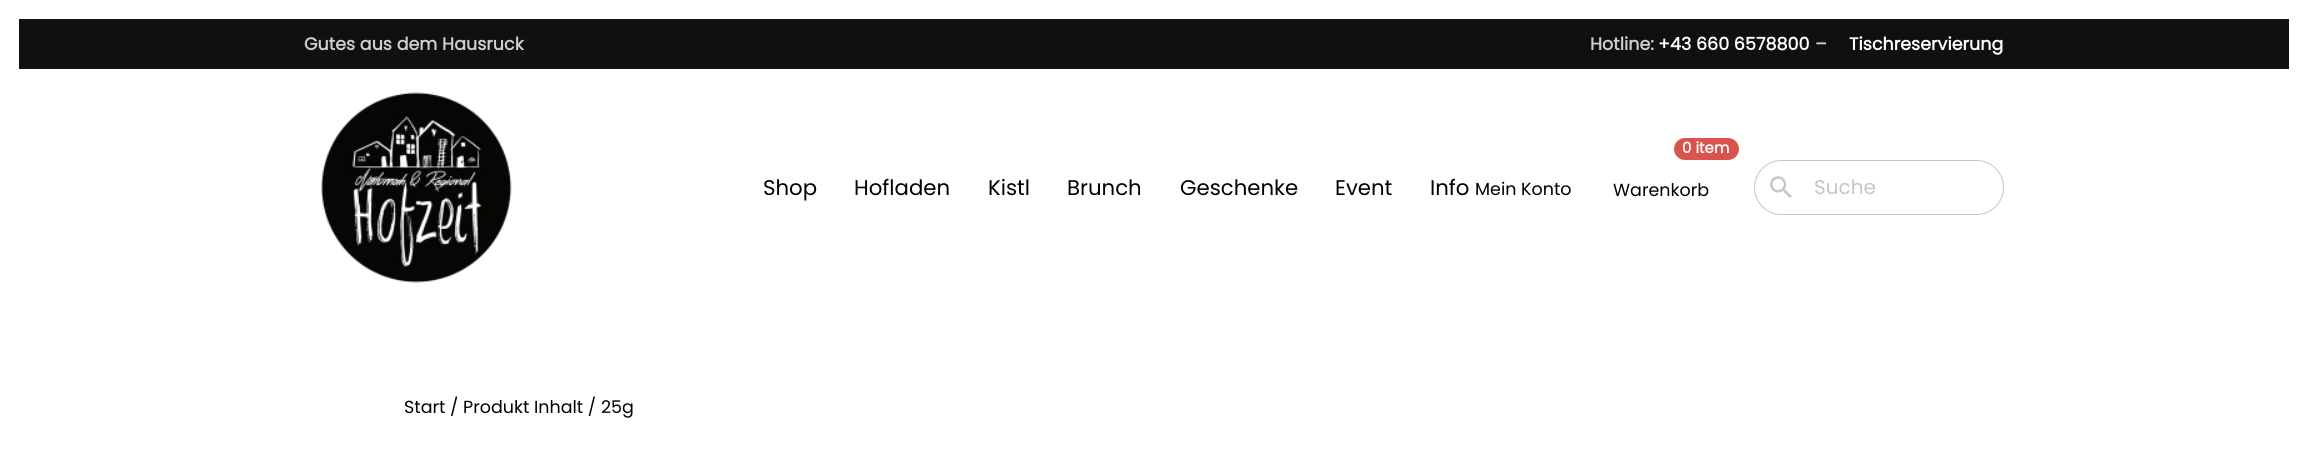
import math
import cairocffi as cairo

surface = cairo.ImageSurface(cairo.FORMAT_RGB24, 2307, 449)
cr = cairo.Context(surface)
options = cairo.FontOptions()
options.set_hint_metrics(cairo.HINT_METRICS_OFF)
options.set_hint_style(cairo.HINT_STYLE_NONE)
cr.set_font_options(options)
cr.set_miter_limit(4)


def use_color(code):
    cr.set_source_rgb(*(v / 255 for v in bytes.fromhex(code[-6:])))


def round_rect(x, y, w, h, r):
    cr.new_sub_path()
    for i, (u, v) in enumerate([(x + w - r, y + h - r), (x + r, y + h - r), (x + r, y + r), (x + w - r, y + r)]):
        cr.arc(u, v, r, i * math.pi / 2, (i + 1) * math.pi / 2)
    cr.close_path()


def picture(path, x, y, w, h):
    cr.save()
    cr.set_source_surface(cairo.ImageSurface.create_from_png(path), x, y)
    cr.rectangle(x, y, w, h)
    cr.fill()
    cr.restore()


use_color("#ffffff")
cr.paint()
use_color("#101010")
cr.rectangle(19, 19, 2270, 50)
cr.fill()
cr.select_font_face("Poppins", cairo.FONT_SLANT_NORMAL, cairo.FONT_WEIGHT_BOLD)
cr.set_font_size(17.5)
use_color("#cfcfcf")
cr.move_to(304, 50)
cr.show_text("Gutes aus dem Hausruck")
cr.move_to(1590, 50)
cr.show_text("Hotline:")
use_color("#ffffff")
cr.move_to(1658, 50)
cr.show_text("+43 660 6578800")
use_color("#cfcfcf")
cr.move_to(1815, 50)
cr.show_text("–")
use_color("#ffffff")
cr.move_to(1849, 50)
cr.show_text("Tischreservierung")
picture("img1.png", 321, 92, 191, 191)
cr.select_font_face("Poppins")
cr.set_font_size(21.25)
use_color("#000000")
cr.move_to(763, 195)
cr.show_text("Shop")
cr.move_to(854, 195)
cr.show_text("Hofladen")
cr.move_to(988, 195)
cr.show_text("Kistl")
cr.move_to(1067, 195)
cr.show_text("Brunch")
cr.move_to(1180, 195)
cr.show_text("Geschenke")
cr.move_to(1335, 195)
cr.show_text("Event")
cr.move_to(1430, 195)
cr.show_text("Info")
cr.set_font_size(17.5)
cr.move_to(1475, 195)
cr.show_text("Mein Konto")
use_color("#d9534f")
round_rect(1674, 138, 65, 22, 11)
cr.fill()
cr.select_font_face("Poppins", cairo.FONT_SLANT_NORMAL, cairo.FONT_WEIGHT_BOLD)
cr.set_font_size(15)
use_color("#ffffff")
cr.move_to(1682, 153)
cr.show_text("0 item")
cr.select_font_face("Poppins")
cr.set_font_size(17.5)
use_color("#000000")
cr.move_to(1613, 196)
cr.show_text("Warenkorb")
round_rect(1754.5, 160.5, 249, 54, 27)
use_color("#c6c6c6")
cr.set_line_width(1)
cr.stroke()
picture("img2.png", 1770, 176, 22, 22)
cr.set_font_size(20)
cr.move_to(1814, 194)
cr.show_text("Suche")
cr.set_font_size(17.5)
use_color("#000000")
cr.move_to(404, 413)
cr.show_text("Start / Produkt Inhalt / 25g")
surface.write_to_png("result.png")
